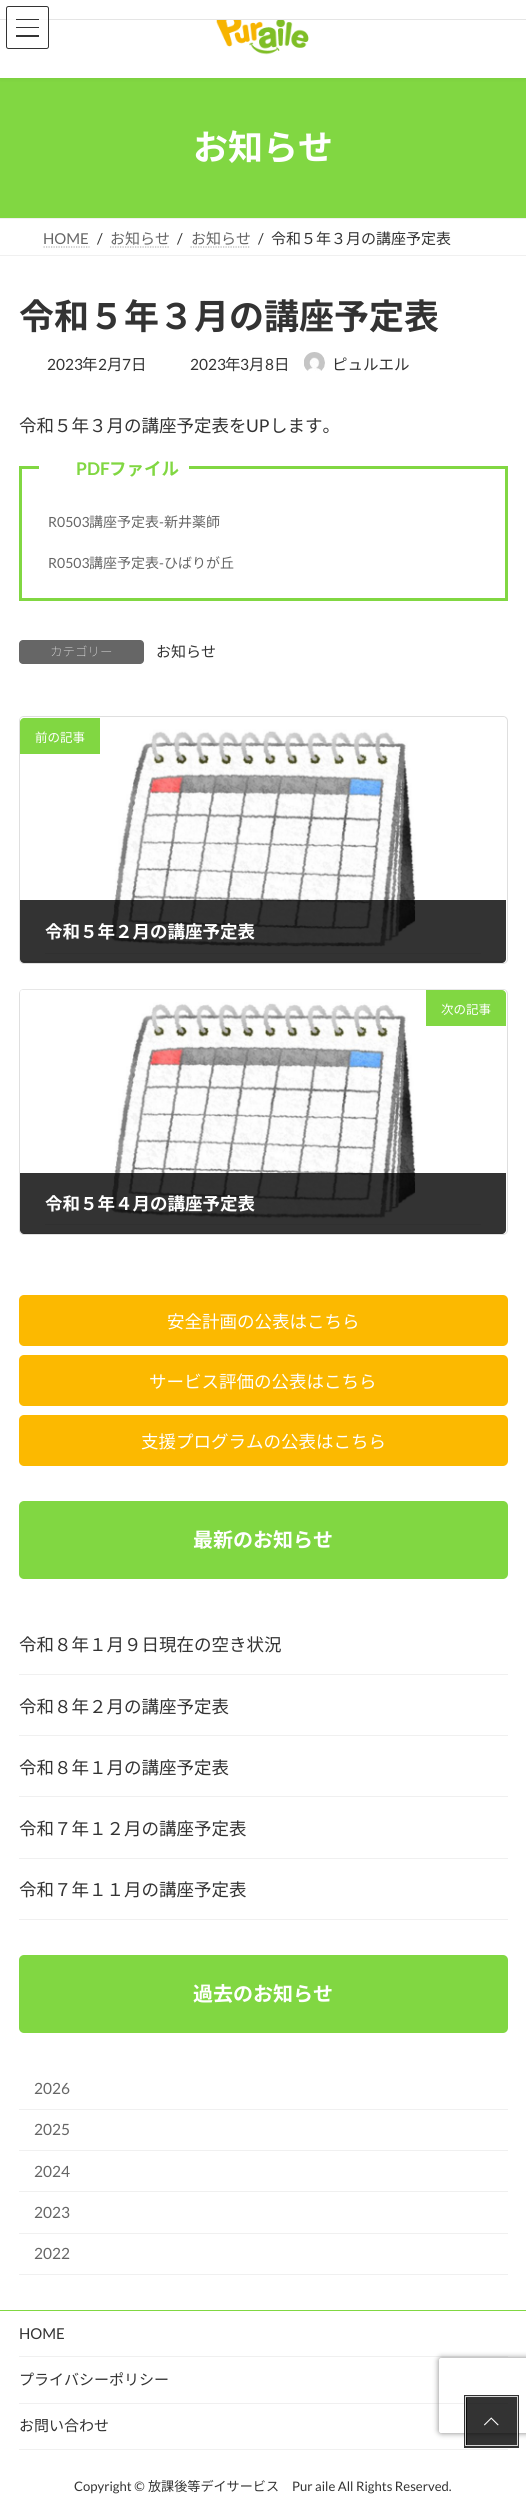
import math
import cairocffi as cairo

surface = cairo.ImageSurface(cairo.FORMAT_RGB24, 526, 2519)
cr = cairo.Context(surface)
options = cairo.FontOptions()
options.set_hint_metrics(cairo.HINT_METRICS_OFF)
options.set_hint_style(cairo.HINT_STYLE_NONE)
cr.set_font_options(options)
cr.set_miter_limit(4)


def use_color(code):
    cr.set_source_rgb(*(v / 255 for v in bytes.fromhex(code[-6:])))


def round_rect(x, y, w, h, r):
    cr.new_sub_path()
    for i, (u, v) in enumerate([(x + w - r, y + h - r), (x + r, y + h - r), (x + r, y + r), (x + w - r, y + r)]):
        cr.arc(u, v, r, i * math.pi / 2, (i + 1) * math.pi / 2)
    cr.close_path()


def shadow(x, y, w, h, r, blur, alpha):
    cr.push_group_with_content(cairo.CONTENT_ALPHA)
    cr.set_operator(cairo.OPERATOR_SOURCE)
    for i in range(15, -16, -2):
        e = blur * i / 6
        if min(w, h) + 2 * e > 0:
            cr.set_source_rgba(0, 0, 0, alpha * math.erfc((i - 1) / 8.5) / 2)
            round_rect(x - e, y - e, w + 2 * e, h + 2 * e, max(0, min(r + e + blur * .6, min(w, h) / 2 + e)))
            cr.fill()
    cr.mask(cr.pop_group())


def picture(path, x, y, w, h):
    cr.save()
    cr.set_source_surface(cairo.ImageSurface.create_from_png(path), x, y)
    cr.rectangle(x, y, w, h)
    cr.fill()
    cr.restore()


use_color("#ffffff")
cr.paint()
use_color("#81d742")
cr.rectangle(0, 78, 526, 140)
cr.fill()
use_color("#000000")
shadow(0, -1, 526, 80, 0, 2, 0.05)
use_color("#ffffff")
cr.rectangle(0, 20, 526, 58)
cr.fill()
picture("img1.png", 216, 20, 93, 35)
cr.rectangle(0, 0, 526, 19)
cr.fill()
use_color("#e5e5e5")
cr.rectangle(0, 19, 526, 1)
cr.fill()
cr.set_source_rgba(1, 1, 1, 0.8)
round_rect(6, 6, 43, 43, 2.5)
cr.fill()
use_color("#323232")
cr.rectangle(16, 19, 23, 1)
cr.fill()
use_color("#333333")
cr.rectangle(16, 27, 23, 1)
cr.fill()
cr.rectangle(16, 35, 23, 2)
cr.fill()
round_rect(6.5, 6.5, 42, 42, 2)
cr.set_line_width(1)
cr.stroke()
cr.select_font_face("Noto Sans JP", cairo.FONT_SLANT_NORMAL, cairo.FONT_WEIGHT_BOLD)
cr.set_font_size(35)
use_color("#ffffff")
cr.move_to(193, 160)
cr.show_text("お知らせ")
use_color("#f0f0f0")
cr.rectangle(0, 218, 526, 1)
cr.fill()
cr.rectangle(0, 255, 526, 1)
cr.fill()
cr.select_font_face("Lato")
cr.set_font_size(15)
use_color("#666666")
cr.move_to(43, 244)
cr.show_text("HOME")
cr.new_path()
cr.move_to(43.5, 247)
cr.line_to(89.5, 247)
use_color("#b3b3b3")
cr.set_line_width(1.2)
cr.set_dash([1.25, 1.25])
cr.stroke()
use_color("#333333")
cr.move_to(97, 244)
cr.show_text("/")
cr.select_font_face("Noto Sans JP")
use_color("#666666")
cr.move_to(110, 244)
cr.show_text("お知らせ")
cr.new_path()
cr.move_to(110, 247)
cr.line_to(170, 247)
use_color("#b3b3b3")
cr.stroke()
cr.select_font_face("Lato")
use_color("#333333")
cr.move_to(177, 244)
cr.show_text("/")
cr.select_font_face("Noto Sans JP")
use_color("#666666")
cr.move_to(191, 244)
cr.show_text("お知らせ")
cr.new_path()
cr.move_to(190.5, 247)
cr.line_to(250.5, 247)
use_color("#b3b3b3")
cr.stroke()
cr.select_font_face("Lato")
use_color("#333333")
cr.move_to(258, 244)
cr.show_text("/")
cr.select_font_face("Noto Sans JP")
cr.move_to(271, 244)
cr.show_text("令和５年３月の講座予定表")
cr.select_font_face("Noto Sans JP", cairo.FONT_SLANT_NORMAL, cairo.FONT_WEIGHT_BOLD)
cr.set_font_size(35)
cr.move_to(19, 329)
cr.show_text("令和５年３月の講座予定表")
cr.select_font_face("Lato")
cr.set_font_size(15.5)
cr.move_to(47, 370)
cr.show_text("2023")
cr.select_font_face("Noto Sans JP")
cr.move_to(82, 370)
cr.show_text("年")
cr.select_font_face("Lato")
cr.move_to(98, 370)
cr.show_text("2")
cr.select_font_face("Noto Sans JP")
cr.move_to(107, 370)
cr.show_text("月")
cr.select_font_face("Lato")
cr.move_to(122, 370)
cr.show_text("7")
cr.select_font_face("Noto Sans JP")
cr.move_to(131, 370)
cr.show_text("日")
cr.select_font_face("Lato")
cr.move_to(190, 370)
cr.show_text("2023")
cr.select_font_face("Noto Sans JP")
cr.move_to(225, 370)
cr.show_text("年")
cr.select_font_face("Lato")
cr.move_to(240, 370)
cr.show_text("3")
cr.select_font_face("Noto Sans JP")
cr.move_to(249, 370)
cr.show_text("月")
cr.select_font_face("Lato")
cr.move_to(265, 370)
cr.show_text("8")
cr.select_font_face("Noto Sans JP")
cr.move_to(274, 370)
cr.show_text("日")
picture("img2.png", 304, 352, 21, 19)
cr.move_to(332, 370)
cr.show_text("ピュルエル")
cr.set_font_size(17.5)
cr.move_to(19, 432)
cr.show_text("令和５年３月の講座予定表を")
cr.select_font_face("Lato")
cr.move_to(246, 432)
cr.show_text("UP")
cr.select_font_face("Noto Sans JP")
cr.move_to(270, 432)
cr.show_text("します。")
cr.rectangle(20.5, 467.5, 486, 132)
use_color("#81d742")
cr.set_line_width(3)
cr.set_dash([])
cr.stroke()
use_color("#ffffff")
cr.rectangle(39, 466, 150, 3)
cr.fill()
cr.select_font_face("Lato", cairo.FONT_SLANT_NORMAL, cairo.FONT_WEIGHT_BOLD)
use_color("#81d742")
cr.move_to(76, 475)
cr.show_text("PDF")
cr.select_font_face("Noto Sans JP", cairo.FONT_SLANT_NORMAL, cairo.FONT_WEIGHT_BOLD)
cr.move_to(109, 475)
cr.show_text("ファイル")
cr.select_font_face("Lato")
cr.set_font_size(14)
use_color("#666666")
cr.move_to(48, 527)
cr.show_text("R0503")
cr.select_font_face("Noto Sans JP")
cr.move_to(89, 527)
cr.show_text("講座予定表")
cr.select_font_face("Lato")
cr.move_to(159, 527)
cr.show_text("-")
cr.select_font_face("Noto Sans JP")
cr.move_to(164, 527)
cr.show_text("新井薬師")
cr.select_font_face("Lato")
cr.move_to(48, 568)
cr.show_text("R0503")
cr.select_font_face("Noto Sans JP")
cr.move_to(89, 568)
cr.show_text("講座予定表")
cr.select_font_face("Lato")
cr.move_to(159, 568)
cr.show_text("-")
cr.select_font_face("Noto Sans JP")
cr.move_to(164, 568)
cr.show_text("ひばりが丘")
round_rect(19, 640, 125, 24, 4)
cr.fill()
cr.select_font_face("Noto Sans JP Thin")
cr.set_font_size(12.5)
use_color("#ffffff")
cr.move_to(50, 656)
cr.show_text("カテゴリー")
cr.select_font_face("Noto Sans JP")
cr.set_font_size(15)
use_color("#333333")
cr.move_to(156, 657)
cr.show_text("お知らせ")
round_rect(19.5, 716.5, 488, 247, 4.5)
use_color("#dfdfdf")
cr.set_line_width(1)
cr.stroke()
picture("img3.png", 20, 717, 485, 244)
cr.save()
round_rect(20, 718, 486, 245, 4)
cr.clip()
use_color("#e5e5e5")
cr.rectangle(20, 961, 486, 1)
cr.fill()
cr.restore()
use_color("#81d742")
cr.new_path()
cr.move_to(24, 718)
cr.line_to(100, 718)
cr.line_to(100, 754)
cr.line_to(20, 754)
cr.line_to(20, 722)
cr.curve_to(20, 720, 22, 718, 24, 718)
cr.close_path()
cr.fill()
cr.set_font_size(12.5)
use_color("#ffffff")
cr.move_to(35, 742)
cr.show_text("前の記事")
cr.set_source_rgba(0, 0, 0, 0.8)
cr.new_path()
cr.move_to(20, 900)
cr.line_to(506, 900)
cr.line_to(506, 959)
cr.curve_to(506, 961, 504, 963, 502, 963)
cr.line_to(24, 963)
cr.curve_to(22, 963, 20, 961, 20, 959)
cr.close_path()
cr.fill()
use_color("#303030")
cr.rectangle(45, 953, 436, 1)
cr.fill()
cr.select_font_face("Noto Sans JP", cairo.FONT_SLANT_NORMAL, cairo.FONT_WEIGHT_BOLD)
cr.set_font_size(17.5)
use_color("#ffffff")
cr.move_to(45, 938)
cr.show_text("令和５年２月の講座予定表")
round_rect(19.5, 989.5, 488, 245, 4.5)
use_color("#dfdfdf")
cr.stroke()
picture("img4.png", 20, 989, 486, 243)
cr.save()
round_rect(20, 990, 486, 244, 4)
cr.clip()
use_color("#e5e5e5")
cr.rectangle(20, 1233, 486, 1)
cr.fill()
cr.restore()
use_color("#81d742")
cr.new_path()
cr.move_to(426, 990)
cr.line_to(502, 990)
cr.curve_to(504, 990, 506, 992, 506, 994)
cr.line_to(506, 1026)
cr.line_to(426, 1026)
cr.close_path()
cr.fill()
cr.select_font_face("Noto Sans JP")
cr.set_font_size(12.5)
use_color("#ffffff")
cr.move_to(441, 1014)
cr.show_text("次の記事")
cr.set_source_rgba(0, 0, 0, 0.8)
cr.new_path()
cr.move_to(20, 1173)
cr.line_to(506, 1173)
cr.line_to(506, 1230)
cr.curve_to(506, 1232, 504, 1234, 502, 1234)
cr.line_to(24, 1234)
cr.curve_to(22, 1234, 20, 1232, 20, 1230)
cr.close_path()
cr.fill()
use_color("#303030")
cr.rectangle(45, 1224, 436, 1)
cr.fill()
cr.select_font_face("Noto Sans JP", cairo.FONT_SLANT_NORMAL, cairo.FONT_WEIGHT_BOLD)
cr.set_font_size(17.5)
use_color("#ffffff")
cr.move_to(45, 1210)
cr.show_text("令和５年４月の講座予定表")
use_color("#fcb900")
round_rect(19, 1295, 489, 51, 5)
cr.fill()
cr.select_font_face("Noto Sans JP")
use_color("#ffffff")
cr.move_to(167, 1328)
cr.show_text("安全計画の公表はこちら")
use_color("#fcb900")
round_rect(19, 1355, 489, 51, 5)
cr.fill()
use_color("#ffffff")
cr.move_to(149, 1388)
cr.show_text("サービス評価の公表はこちら")
use_color("#fcb900")
round_rect(19, 1415, 489, 51, 5)
cr.fill()
use_color("#ffffff")
cr.move_to(141, 1448)
cr.show_text("支援プログラムの公表はこちら")
use_color("#81d742")
round_rect(19, 1501, 489, 78, 5)
cr.fill()
cr.select_font_face("Noto Sans JP", cairo.FONT_SLANT_NORMAL, cairo.FONT_WEIGHT_BOLD)
cr.set_font_size(20)
use_color("#ffffff")
cr.move_to(193, 1547)
cr.show_text("最新のお知らせ")
use_color("#f0f0f0")
cr.rectangle(19, 1674, 489, 1)
cr.fill()
cr.select_font_face("Noto Sans JP")
cr.set_font_size(17.5)
use_color("#333333")
cr.move_to(19, 1651)
cr.show_text("令和８年１月９日現在の空き状況")
use_color("#f0f0f0")
cr.rectangle(19, 1735, 489, 1)
cr.fill()
use_color("#333333")
cr.move_to(19, 1713)
cr.show_text("令和８年２月の講座予定表")
use_color("#f0f0f0")
cr.rectangle(19, 1796, 489, 1)
cr.fill()
use_color("#333333")
cr.move_to(19, 1774)
cr.show_text("令和８年１月の講座予定表")
use_color("#f0f0f0")
cr.rectangle(19, 1858, 489, 1)
cr.fill()
use_color("#333333")
cr.move_to(19, 1835)
cr.show_text("令和７年１２月の講座予定表")
use_color("#f0f0f0")
cr.rectangle(19, 1919, 489, 1)
cr.fill()
use_color("#333333")
cr.move_to(19, 1896)
cr.show_text("令和７年１１月の講座予定表")
use_color("#81d742")
round_rect(19, 1955, 489, 78, 5)
cr.fill()
cr.select_font_face("Noto Sans JP", cairo.FONT_SLANT_NORMAL, cairo.FONT_WEIGHT_BOLD)
cr.set_font_size(20)
use_color("#ffffff")
cr.move_to(193, 2001)
cr.show_text("過去のお知らせ")
use_color("#f0f0f0")
cr.rectangle(19, 2109, 489, 1)
cr.fill()
cr.select_font_face("Lato")
cr.set_font_size(15.5)
use_color("#666666")
cr.move_to(34, 2094)
cr.show_text("2026")
use_color("#f0f0f0")
cr.rectangle(19, 2150, 489, 1)
cr.fill()
use_color("#666666")
cr.move_to(34, 2135)
cr.show_text("2025")
use_color("#f0f0f0")
cr.rectangle(19, 2191, 489, 1)
cr.fill()
use_color("#666666")
cr.move_to(34, 2177)
cr.show_text("2024")
use_color("#f0f0f0")
cr.rectangle(19, 2233, 489, 1)
cr.fill()
use_color("#666666")
cr.move_to(34, 2218)
cr.show_text("2023")
use_color("#f0f0f0")
cr.rectangle(19, 2274, 489, 1)
cr.fill()
use_color("#666666")
cr.move_to(34, 2259)
cr.show_text("2022")
use_color("#81d742")
cr.rectangle(0, 2310, 526, 1)
cr.fill()
use_color("#f0f0f0")
cr.rectangle(19, 2356, 489, 1)
cr.fill()
cr.set_font_size(15)
use_color("#333333")
cr.move_to(19, 2339)
cr.show_text("HOME")
use_color("#f0f0f0")
cr.rectangle(19, 2403, 489, 1)
cr.fill()
cr.select_font_face("Noto Sans JP")
use_color("#333333")
cr.move_to(19, 2385)
cr.show_text("プライバシーポリシー")
use_color("#f0f0f0")
cr.rectangle(19, 2449, 489, 1)
cr.fill()
use_color("#333333")
cr.move_to(19, 2431)
cr.show_text("お問い合わせ")
cr.select_font_face("Lato")
cr.set_font_size(13.1)
cr.move_to(74, 2491)
cr.show_text("Copyright ©")
cr.select_font_face("Noto Sans JP")
cr.move_to(148, 2491)
cr.show_text("放課後等デイサービス")
cr.select_font_face("Lato")
cr.move_to(292, 2491)
cr.show_text("Pur aile All Rights Reserved.")
cr.save()
cr.set_fill_rule(cairo.FILL_RULE_EVEN_ODD)
cr.new_path()
cr.move_to(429, 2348)
cr.line_to(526, 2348)
cr.line_to(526, 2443)
cr.line_to(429, 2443)
cr.close_path()
cr.move_to(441.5, 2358)
cr.line_to(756.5, 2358)
cr.curve_to(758, 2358, 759, 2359, 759, 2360.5)
cr.line_to(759, 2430.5)
cr.curve_to(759, 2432, 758, 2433, 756.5, 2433)
cr.line_to(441.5, 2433)
cr.curve_to(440, 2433, 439, 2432, 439, 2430.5)
cr.line_to(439, 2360.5)
cr.curve_to(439, 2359, 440, 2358, 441.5, 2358)
cr.close_path()
cr.clip()
use_color("#808080")
shadow(439, 2358, 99, 75, 2.5, 3, 1)
cr.restore()
cr.rectangle(465.5, 2396.5, 52, 50)
cr.set_source_rgba(0, 0, 0, 0.8)
cr.set_line_width(3)
cr.stroke()
cr.rectangle(465.5, 2396.5, 52, 49)
cr.set_source_rgba(1, 1, 1, 0.8)
cr.set_line_width(1)
cr.stroke()
cr.set_source_rgba(0, 0, 0, 0.8)
cr.rectangle(466, 2398, 50, 47)
cr.fill()
picture("img5.png", 484, 2417, 15, 9)
surface.write_to_png("result.png")
